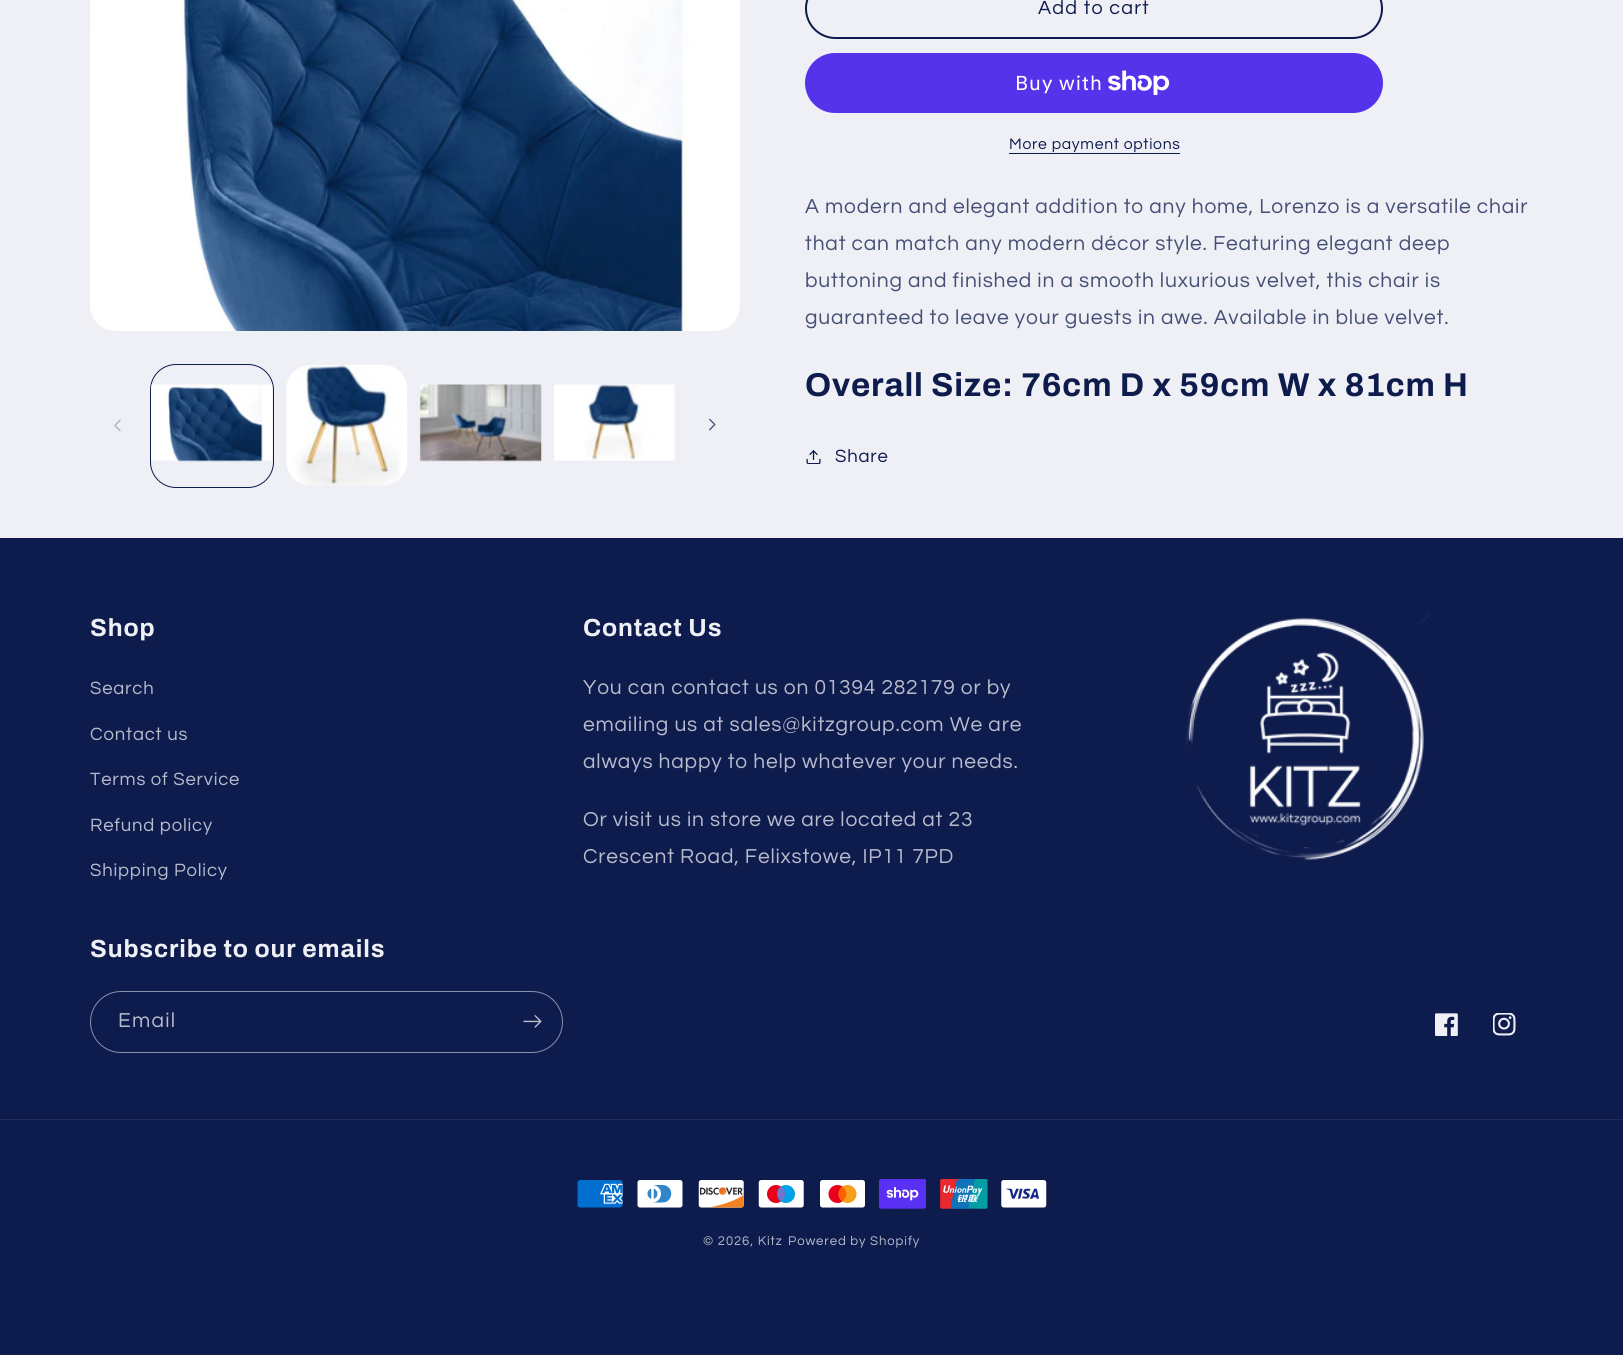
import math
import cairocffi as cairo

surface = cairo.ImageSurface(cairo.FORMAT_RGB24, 1623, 1355)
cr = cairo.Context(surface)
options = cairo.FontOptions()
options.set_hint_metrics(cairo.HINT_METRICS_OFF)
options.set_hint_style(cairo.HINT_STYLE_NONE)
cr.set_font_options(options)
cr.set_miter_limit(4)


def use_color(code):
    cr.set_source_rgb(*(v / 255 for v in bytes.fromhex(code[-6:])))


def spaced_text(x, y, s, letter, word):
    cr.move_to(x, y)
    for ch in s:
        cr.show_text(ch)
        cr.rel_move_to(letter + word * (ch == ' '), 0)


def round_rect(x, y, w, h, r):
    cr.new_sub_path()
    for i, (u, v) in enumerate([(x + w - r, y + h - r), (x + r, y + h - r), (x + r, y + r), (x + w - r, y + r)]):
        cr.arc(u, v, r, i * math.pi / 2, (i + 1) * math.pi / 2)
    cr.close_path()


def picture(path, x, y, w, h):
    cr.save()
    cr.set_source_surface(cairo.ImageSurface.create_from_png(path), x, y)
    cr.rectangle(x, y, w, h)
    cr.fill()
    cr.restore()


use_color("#eff0f5")
cr.paint()
picture("img1.png", 90, 0, 650, 331)
picture("img2.png", 114, 419, 7, 13)
round_rect(150.5, 364.5, 123, 123, 25.5)
use_color("#0e1b4d")
cr.set_line_width(1)
cr.stroke()
picture("img3.png", 151, 384, 122, 78)
picture("img4.png", 286, 365, 122, 121)
picture("img5.png", 419, 384, 123, 78)
picture("img6.png", 554, 384, 121, 77)
picture("img7.png", 709, 418, 7, 13)
round_rect(806, -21, 576, 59, 29.5)
cr.set_line_width(2)
cr.stroke()
cr.select_font_face("Questrial")
cr.set_font_size(19.75)
spaced_text(1038, 14, "Add to cart", 1.25, 0)
use_color("#5433eb")
round_rect(805, 53, 578, 60, 30)
cr.fill()
cr.select_font_face("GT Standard")
cr.set_font_size(20)
use_color("#ffffff")
spaced_text(1015, 90, "Buy with", 0.8, 0)
picture("img8.png", 1108, 70, 62, 25)
cr.select_font_face("Questrial")
cr.set_font_size(15.75)
use_color("#0e1b4d")
spaced_text(1009, 149, "More payment options", 0.7, 0)
cr.rectangle(1009, 153, 171, 1)
cr.fill()
cr.set_font_size(21)
use_color("#465077")
spaced_text(805, 213, "A modern and elegant addition to any home, Lorenzo is a versatile chair", 0.8, 0)
spaced_text(805, 250, "that can match any modern décor style. Featuring elegant deep", 0.8, 0)
spaced_text(805, 287, "buttoning and finished in a smooth luxurious velvet, this chair is", 0.8, 0)
spaced_text(805, 324, "guaranteed to leave your guests in awe. Available in blue velvet.", 0.8, 0)
cr.select_font_face("Archivo", cairo.FONT_SLANT_NORMAL, cairo.FONT_WEIGHT_BOLD)
cr.set_font_size(33)
use_color("#0e1b4d")
spaced_text(805, 396, "Overall Size: 76cm D x 59cm W x 81cm H", 0.85, 0)
picture("img9.png", 806, 450, 15, 14)
cr.select_font_face("Questrial")
cr.set_font_size(18.5)
spaced_text(835, 462, "Share", 0.8, 0)
cr.rectangle(0, 538, 1623, 817)
cr.fill()
cr.select_font_face("Archivo", cairo.FONT_SLANT_NORMAL, cairo.FONT_WEIGHT_BOLD)
cr.set_font_size(24.75)
use_color("#eff0f5")
spaced_text(90, 636, "Shop", 0.85, 0)
cr.select_font_face("Questrial")
cr.set_font_size(18.5)
use_color("#b7bbcb")
spaced_text(90, 694, "Search", 0.8, 0)
spaced_text(90, 740, "Contact us", 0.8, 0)
spaced_text(90, 785, "Terms of Service", 0.8, 0)
spaced_text(90, 831, "Refund policy", 0.8, 0)
spaced_text(90, 876, "Shipping Policy", 0.8, 0)
cr.select_font_face("Archivo", cairo.FONT_SLANT_NORMAL, cairo.FONT_WEIGHT_BOLD)
cr.set_font_size(24.75)
use_color("#eff0f5")
spaced_text(583, 636, "Contact Us", 0.85, 0)
cr.select_font_face("Questrial")
cr.set_font_size(21)
use_color("#b7bbcb")
spaced_text(583, 694, "You can contact us on 01394 282179 or by", 0.8, 0)
spaced_text(583, 731, "emailing us at sales@kitzgroup.com We are", 0.8, 0)
spaced_text(583, 768, "always happy to help whatever your needs.", 0.8, 0)
spaced_text(583, 826, "Or visit us in store we are located at 23", 0.8, 0)
spaced_text(583, 863, "Crescent Road, Felixstowe, IP11 7PD", 0.8, 0)
picture("img10.png", 1186, 613, 244, 247)
cr.select_font_face("Archivo", cairo.FONT_SLANT_NORMAL, cairo.FONT_WEIGHT_BOLD)
cr.set_font_size(24.75)
use_color("#eff0f5")
spaced_text(90, 957, "Subscribe to our emails", 0.85, 0)
round_rect(90.5, 991.5, 472, 61, 30.5)
use_color("#8a90a9")
cr.set_line_width(1)
cr.stroke()
cr.select_font_face("Questrial")
cr.set_font_size(21)
use_color("#b7bbcb")
spaced_text(118, 1027, "Email", 1.25, 0)
picture("img11.png", 523, 1015, 19, 13)
picture("img12.png", 1435, 1013, 23, 23)
picture("img13.png", 1493, 1013, 23, 23)
use_color("#202c5a")
cr.rectangle(0, 1119, 1623, 1)
cr.fill()
picture("img14.png", 577, 1179, 46, 29)
picture("img15.png", 637, 1179, 46, 29)
picture("img16.png", 698, 1179, 47, 29)
picture("img17.png", 758, 1179, 47, 29)
picture("img18.png", 819, 1179, 47, 29)
picture("img19.png", 879, 1179, 47, 30)
picture("img20.png", 940, 1179, 48, 30)
picture("img21.png", 1000, 1179, 47, 29)
cr.set_font_size(13.1)
use_color("#b7bbcb")
spaced_text(703, 1245, "© 2026, Kitz", 0.9, 0)
spaced_text(788, 1245, "Powered by Shopify", 0.9, 0)
surface.write_to_png("result.png")
